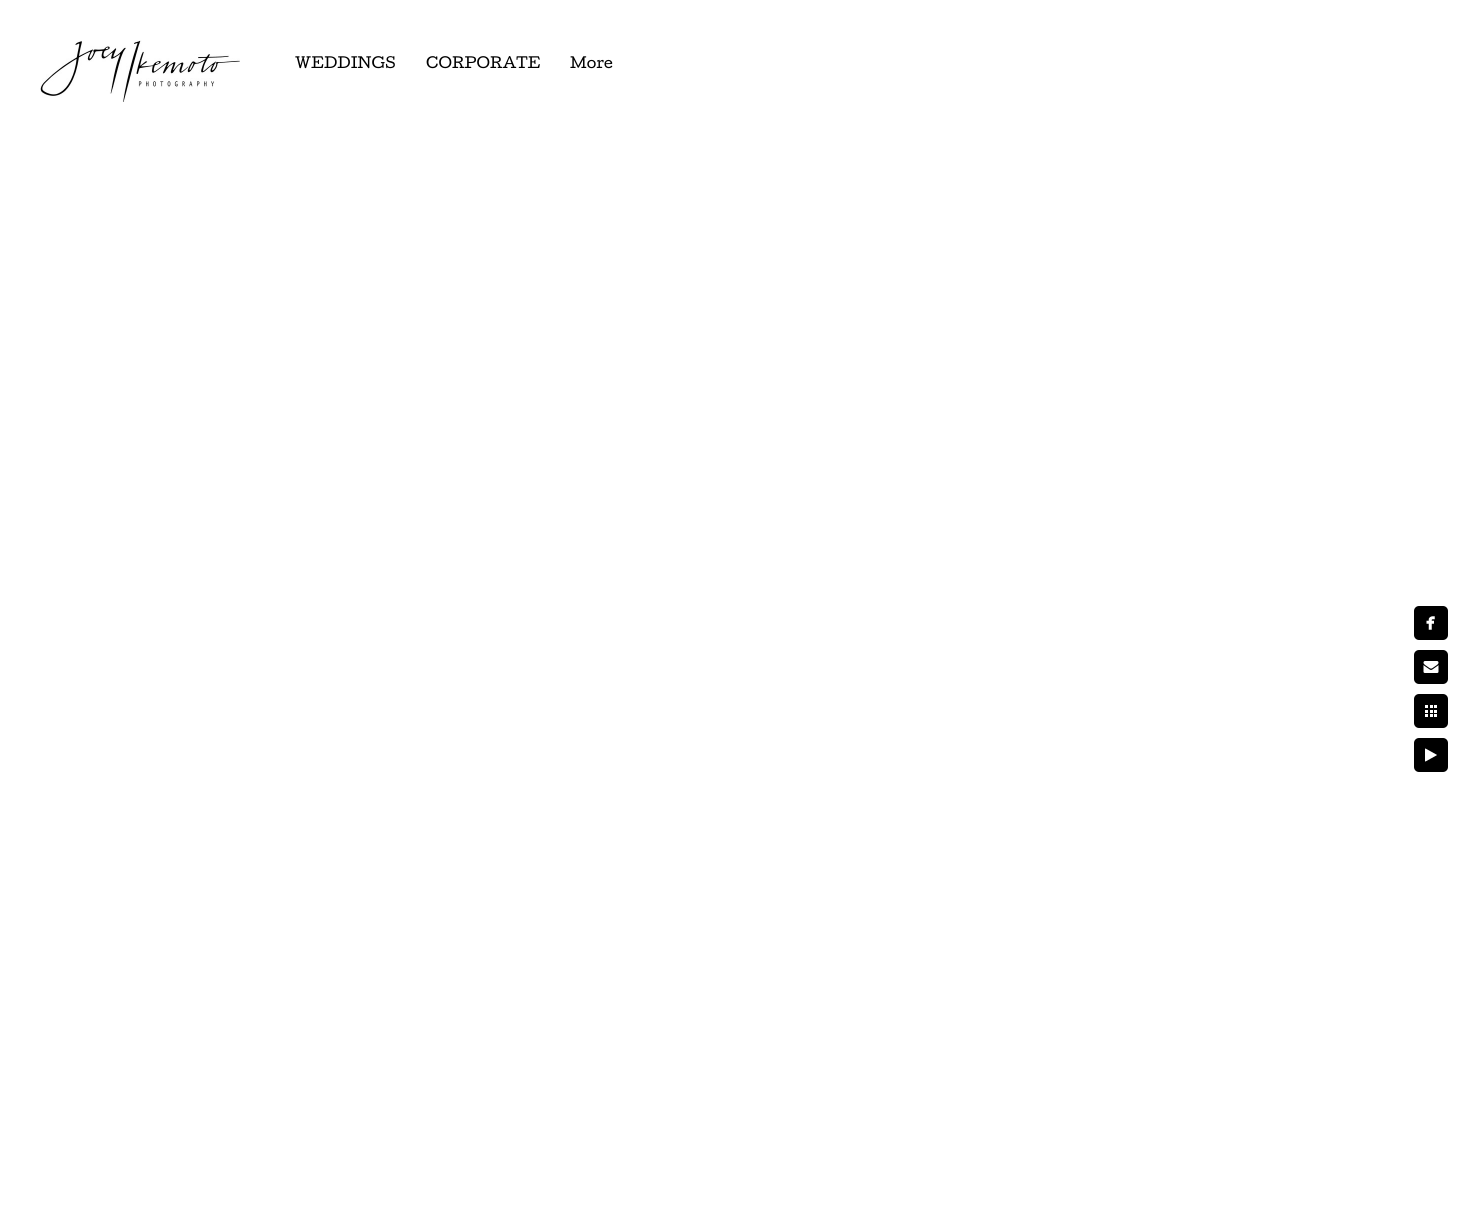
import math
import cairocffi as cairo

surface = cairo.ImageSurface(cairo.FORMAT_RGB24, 1458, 1227)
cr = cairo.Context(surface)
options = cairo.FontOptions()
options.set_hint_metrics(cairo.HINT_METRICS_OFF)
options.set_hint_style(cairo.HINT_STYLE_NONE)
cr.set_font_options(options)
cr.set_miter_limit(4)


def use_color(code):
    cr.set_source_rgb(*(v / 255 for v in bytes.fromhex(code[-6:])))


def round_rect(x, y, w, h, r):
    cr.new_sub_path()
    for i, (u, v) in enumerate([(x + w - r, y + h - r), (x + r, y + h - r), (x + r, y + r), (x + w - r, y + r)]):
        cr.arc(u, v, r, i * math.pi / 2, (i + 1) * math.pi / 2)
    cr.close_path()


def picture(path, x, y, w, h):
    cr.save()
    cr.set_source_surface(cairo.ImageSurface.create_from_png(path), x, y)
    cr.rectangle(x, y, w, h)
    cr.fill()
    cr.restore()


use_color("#ffffff")
cr.paint()
picture("img1.png", 40, 40, 200, 62)
cr.select_font_face("Cutive")
cr.set_font_size(14)
use_color("#000000")
cr.move_to(295, 68)
cr.show_text("WEDDINGS")
cr.move_to(426, 68)
cr.show_text("CORPORATE")
cr.move_to(570, 68)
cr.show_text("More")
round_rect(1414, 606, 34, 34, 5)
cr.fill()
picture("img2.png", 1426, 616, 9, 14)
round_rect(1414, 650, 34, 34, 5)
cr.fill()
picture("img3.png", 1423, 661, 16, 12)
round_rect(1414, 694, 34, 34, 5)
cr.fill()
picture("img4.png", 1425, 705, 12, 12)
round_rect(1414, 738, 34, 34, 5)
cr.fill()
picture("img5.png", 1425, 748, 12, 14)
surface.write_to_png("result.png")
